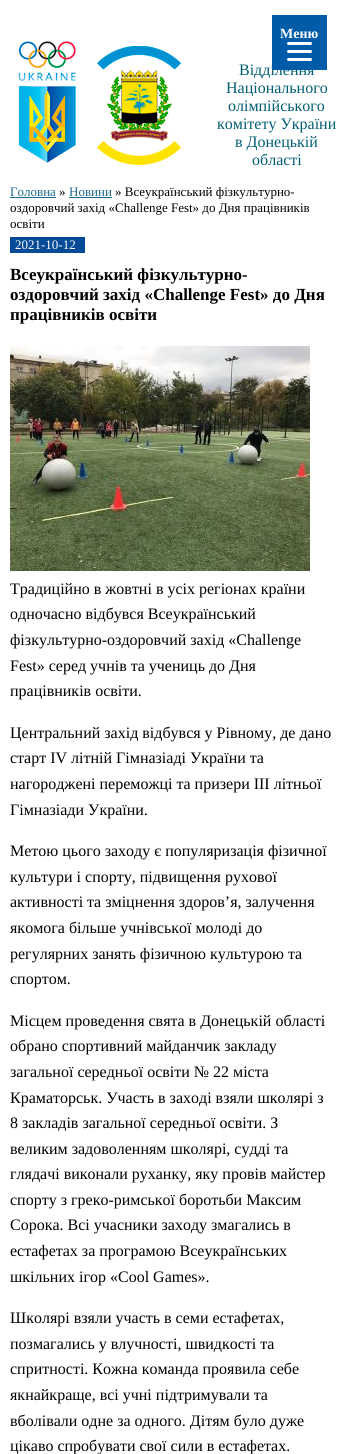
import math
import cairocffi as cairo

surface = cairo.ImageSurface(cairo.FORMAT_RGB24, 344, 1454)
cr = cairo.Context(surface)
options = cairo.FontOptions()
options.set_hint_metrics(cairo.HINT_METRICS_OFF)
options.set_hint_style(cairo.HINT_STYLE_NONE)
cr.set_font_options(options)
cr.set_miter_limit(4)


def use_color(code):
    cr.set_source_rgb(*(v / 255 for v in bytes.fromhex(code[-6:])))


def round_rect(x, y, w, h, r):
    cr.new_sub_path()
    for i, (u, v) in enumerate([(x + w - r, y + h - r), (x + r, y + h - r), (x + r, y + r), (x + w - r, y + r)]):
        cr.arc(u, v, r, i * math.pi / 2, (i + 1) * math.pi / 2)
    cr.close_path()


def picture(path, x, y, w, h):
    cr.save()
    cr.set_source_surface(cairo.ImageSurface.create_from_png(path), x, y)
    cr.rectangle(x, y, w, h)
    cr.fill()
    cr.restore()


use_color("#ffffff")
cr.paint()
cr.select_font_face("Liberation Serif")
cr.set_font_size(16)
use_color("#015e73")
cr.move_to(239, 75)
cr.show_text("Відділення")
use_color("#005ca8")
cr.rectangle(272, 15, 55, 55)
cr.fill()
cr.select_font_face("Liberation Serif", cairo.FONT_SLANT_NORMAL, cairo.FONT_WEIGHT_BOLD)
cr.set_font_size(14)
use_color("#ffffff")
cr.move_to(280, 38)
cr.show_text("Меню")
round_rect(287, 50, 25, 3, 1.5)
cr.fill()
round_rect(287, 42, 25, 3, 1.5)
cr.fill()
round_rect(287, 58, 25, 3, 1.5)
cr.fill()
cr.select_font_face("Liberation Serif")
cr.set_font_size(13)
use_color("#1d698e")
cr.move_to(10, 196)
cr.show_text("Головна")
cr.rectangle(10, 197, 46, 1)
cr.fill()
use_color("#000000")
cr.move_to(59, 196)
cr.show_text("»")
use_color("#1d698e")
cr.move_to(69, 196)
cr.show_text("Новини")
cr.rectangle(69, 197, 43, 1)
cr.fill()
use_color("#000000")
cr.move_to(115, 196)
cr.show_text("» Всеукраїнський фізкультурно-")
cr.move_to(10, 212)
cr.show_text("оздоровчий захід «Challenge Fest» до Дня працівників")
cr.move_to(10, 228)
cr.show_text("освіти")
use_color("#044a97")
cr.rectangle(10, 237, 75, 16)
cr.fill()
use_color("#ffffff")
cr.move_to(15, 249)
cr.show_text("2021-10-12")
cr.select_font_face("Liberation Serif", cairo.FONT_SLANT_NORMAL, cairo.FONT_WEIGHT_BOLD)
cr.set_font_size(17)
use_color("#000000")
cr.move_to(10, 280)
cr.show_text("Всеукраїнський фізкультурно-")
cr.move_to(10, 300)
cr.show_text("оздоровчий захід «Challenge Fest» до Дня")
cr.move_to(10, 320)
cr.show_text("працівників освіти")
picture("img1.png", 10, 346, 300, 225)
cr.select_font_face("Liberation Serif")
cr.set_font_size(16)
cr.move_to(10, 594)
cr.show_text("Традиційно в жовтні в усіх регіонах країни")
cr.move_to(10, 619)
cr.show_text("одночасно відбувся Всеукраїнський")
cr.move_to(10, 645)
cr.show_text("фізкультурно-оздоровчий захід «Challenge")
cr.move_to(10, 671)
cr.show_text("Fest» серед учнів та учениць до Дня")
cr.move_to(10, 696)
cr.show_text("працівників освіти.")
cr.move_to(10, 738)
cr.show_text("Центральний захід відбувся у Рівному, де дано")
cr.move_to(10, 763)
cr.show_text("старт IV літній Гімназіаді України та")
cr.move_to(10, 789)
cr.show_text("нагороджені переможці та призери IІІ літньої")
cr.move_to(10, 815)
cr.show_text("Гімназіади України.")
cr.move_to(10, 856)
cr.show_text("Метою цього заходу є популяризація фізичної")
cr.move_to(10, 882)
cr.show_text("культури і спорту, підвищення рухової")
cr.move_to(10, 907)
cr.show_text("активності та зміцнення здоров’я, залучення")
cr.move_to(10, 933)
cr.show_text("якомога більше учнівської молоді до")
cr.move_to(10, 959)
cr.show_text("регулярних занять фізичною культурою та")
cr.move_to(10, 984)
cr.show_text("спортом.")
cr.move_to(10, 1026)
cr.show_text("Місцем проведення свята в Донецькій області")
cr.move_to(10, 1051)
cr.show_text("обрано спортивний майданчик закладу")
cr.move_to(10, 1077)
cr.show_text("загальної середньої освіти № 22 міста")
cr.move_to(10, 1103)
cr.show_text("Краматорськ. Участь в заході взяли школярі з")
cr.move_to(10, 1128)
cr.show_text("8 закладів загальної середньої освіти. З")
cr.move_to(10, 1154)
cr.show_text("великим задоволенням школярі, судді та")
cr.move_to(10, 1179)
cr.show_text("глядачі виконали руханку, яку провів майстер")
cr.move_to(10, 1205)
cr.show_text("спорту з греко-римської боротьби Максим")
cr.move_to(10, 1230)
cr.show_text("Сорока. Всі учасники заходу змагались в")
cr.move_to(10, 1256)
cr.show_text("естафетах за програмою Всеукраїнських")
cr.move_to(10, 1282)
cr.show_text("шкільних ігор «Cool Games».")
cr.move_to(10, 1323)
cr.show_text("Школярі взяли участь в семи естафетах,")
cr.move_to(10, 1349)
cr.show_text("позмагались у влучності, швидкості та")
cr.move_to(10, 1374)
cr.show_text("спритності. Кожна команда проявила себе")
cr.move_to(10, 1400)
cr.show_text("якнайкраще, всі учні підтримували та")
cr.move_to(10, 1426)
cr.show_text("вболівали одне за одного. Дітям було дуже")
cr.move_to(10, 1451)
cr.show_text("цікаво спробувати свої сили в естафетах.")
picture("img2.png", 18, 41, 163, 124)
use_color("#015e73")
cr.move_to(226, 93)
cr.show_text("Національного")
cr.move_to(228, 111)
cr.show_text("олімпійського")
cr.move_to(217, 129)
cr.show_text("комітету України")
cr.move_to(235, 147)
cr.show_text("в Донецькій")
cr.move_to(252, 165)
cr.show_text("області")
surface.write_to_png("result.png")
